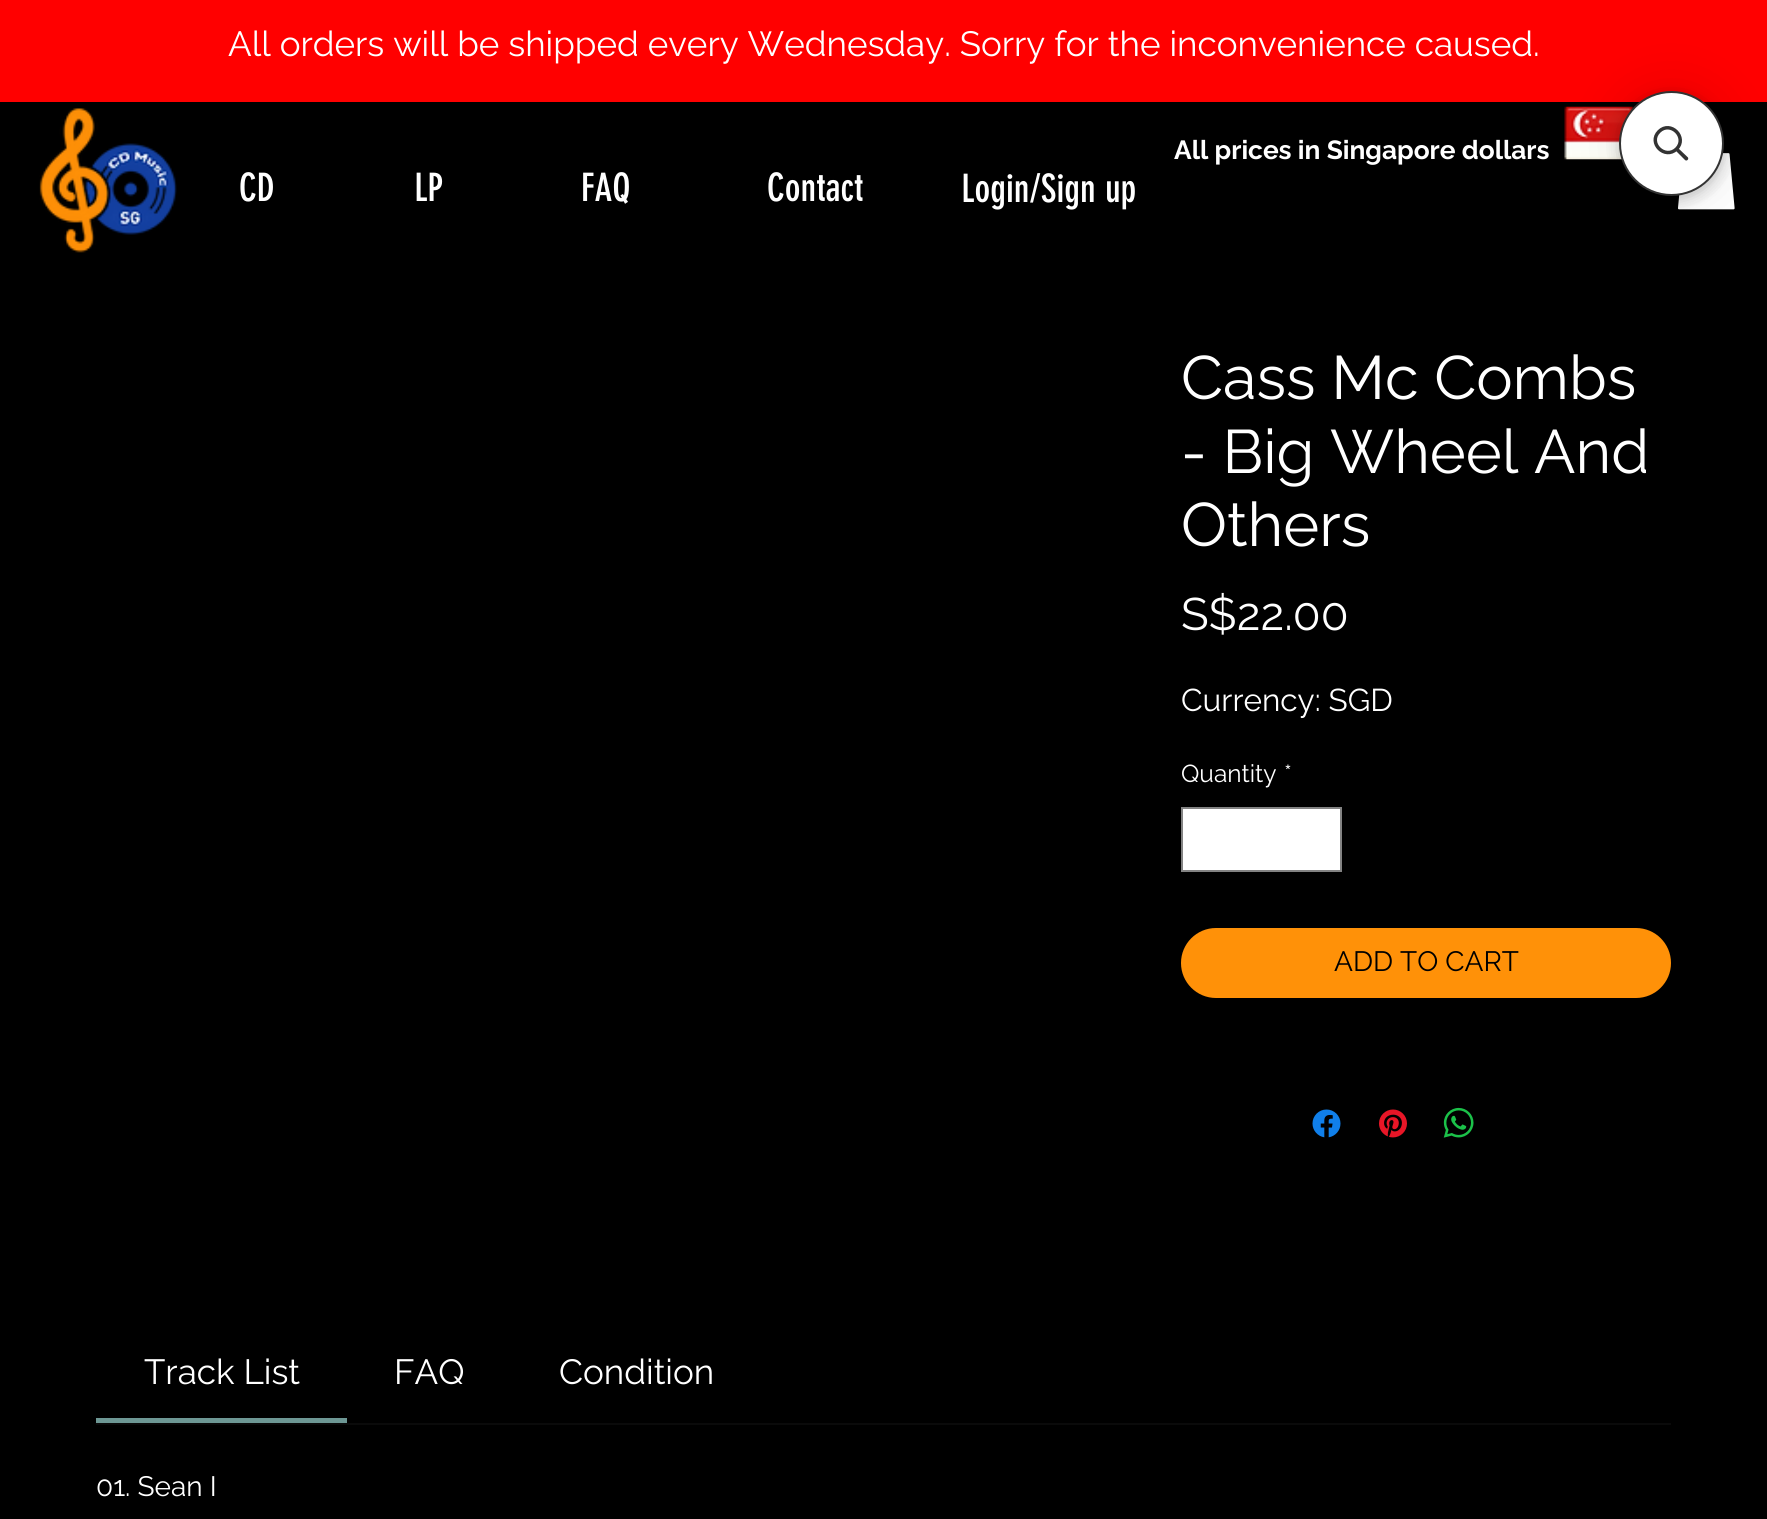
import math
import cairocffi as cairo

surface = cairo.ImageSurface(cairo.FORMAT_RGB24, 1767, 1519)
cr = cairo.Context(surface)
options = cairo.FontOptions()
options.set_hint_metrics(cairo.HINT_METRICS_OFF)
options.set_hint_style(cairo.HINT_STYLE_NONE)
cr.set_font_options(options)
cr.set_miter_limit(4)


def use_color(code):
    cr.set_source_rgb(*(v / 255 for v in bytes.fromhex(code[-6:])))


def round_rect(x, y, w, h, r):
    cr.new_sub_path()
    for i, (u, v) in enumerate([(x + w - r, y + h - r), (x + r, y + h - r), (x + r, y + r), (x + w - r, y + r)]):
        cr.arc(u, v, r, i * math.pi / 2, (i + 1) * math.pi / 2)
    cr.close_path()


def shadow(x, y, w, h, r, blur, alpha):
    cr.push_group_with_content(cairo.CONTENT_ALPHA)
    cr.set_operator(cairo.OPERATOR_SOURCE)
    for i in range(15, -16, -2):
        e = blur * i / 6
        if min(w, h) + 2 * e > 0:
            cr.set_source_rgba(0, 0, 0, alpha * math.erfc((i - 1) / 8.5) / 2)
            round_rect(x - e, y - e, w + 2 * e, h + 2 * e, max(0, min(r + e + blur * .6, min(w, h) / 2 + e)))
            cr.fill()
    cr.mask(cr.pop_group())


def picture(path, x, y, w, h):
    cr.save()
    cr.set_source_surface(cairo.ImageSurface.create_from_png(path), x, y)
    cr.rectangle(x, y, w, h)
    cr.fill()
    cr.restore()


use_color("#000000")
cr.paint()
use_color("#ff0000")
cr.rectangle(0, 0, 1767, 102)
cr.fill()
cr.select_font_face("Raleway")
cr.set_font_size(35)
use_color("#ffffff")
cr.move_to(228, 56)
cr.show_text("All orders will be shipped every Wednesday. Sorry for the inconvenience caused.")
cr.select_font_face("Raleway", cairo.FONT_SLANT_NORMAL, cairo.FONT_WEIGHT_BOLD)
cr.set_font_size(26.25)
cr.move_to(1174, 159)
cr.show_text("All prices in Singapore dollars")
picture("img1.png", 39, 108, 138, 145)
cr.select_font_face("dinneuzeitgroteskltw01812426")
cr.set_font_size(38.5)
cr.move_to(239, 201)
cr.show_text("CD")
cr.move_to(414, 201)
cr.show_text("LP")
cr.move_to(581, 201)
cr.show_text("FAQ")
cr.move_to(767, 201)
cr.show_text("Contact")
cr.move_to(961, 202)
cr.show_text("Login/Sign up")
picture("img2.png", 1564, 106, 70, 54)
picture("img3.png", 1678, 153, 57, 57)
cr.select_font_face("Raleway")
cr.set_font_size(61.25)
cr.move_to(1181, 399)
cr.show_text("Cass Mc Combs")
cr.move_to(1181, 473)
cr.show_text("- Big Wheel And")
cr.move_to(1181, 546)
cr.show_text("Others")
cr.set_font_size(45.5)
cr.move_to(1181, 630)
cr.show_text("S$22.00")
cr.set_font_size(31.5)
cr.move_to(1181, 711)
cr.show_text("Currency: SGD")
cr.set_font_size(24.5)
cr.move_to(1181, 782)
cr.show_text("Quantity")
cr.move_to(1284, 782)
cr.show_text("*")
cr.rectangle(1182, 808, 159, 63)
cr.fill_preserve()
use_color("#838383")
cr.stroke()
use_color("#ff9108")
round_rect(1181, 928, 490, 70, 35)
cr.fill()
cr.set_font_size(28)
use_color("#000000")
cr.move_to(1334, 971)
cr.show_text("ADD TO CART")
picture("img4.png", 1312, 1109, 29, 29)
picture("img5.png", 1379, 1109, 28, 29)
picture("img6.png", 1443, 1107, 31, 31)
use_color("#0a0a0a")
cr.rectangle(96, 1423, 1575, 2)
cr.fill()
use_color("#6d9794")
cr.rectangle(96, 1418, 251, 5)
cr.fill()
cr.set_font_size(35)
use_color("#ffffff")
cr.move_to(144, 1384)
cr.show_text("Track List")
cr.move_to(394, 1384)
cr.show_text("FAQ")
cr.move_to(559, 1384)
cr.show_text("Condition")
cr.set_font_size(28)
cr.move_to(96, 1496)
cr.show_text("01. Sean I")
use_color("#000000")
shadow(1619, 98, 105, 105, 52.5, 7, 0.05)
shadow(1619, 95, 105, 105, 52.5, 7, 0.15)
shadow(1619, 91, 105, 105, 52.5, 26, 0.1)
use_color("#ffffff")
cr.arc(1671.5, 143.5, 51.5, 0, 2 * math.pi)
cr.fill_preserve()
use_color("#333333")
cr.stroke()
cr.new_path()
cr.move_to(1659, 131.5)
cr.curve_to(1670.5, 120, 1688, 137.5, 1676.5, 149)
cr.curve_to(1665, 160, 1647.5, 143, 1659, 131.5)
cr.close_path()
cr.set_line_width(3.5)
cr.stroke()
cr.new_path()
cr.move_to(1675, 150)
cr.line_to(1677.5, 147.5)
cr.line_to(1688, 157.5)
cr.curve_to(1689, 159.5, 1686.5, 161.5, 1685, 160)
cr.close_path()
cr.fill()
surface.write_to_png("result.png")
